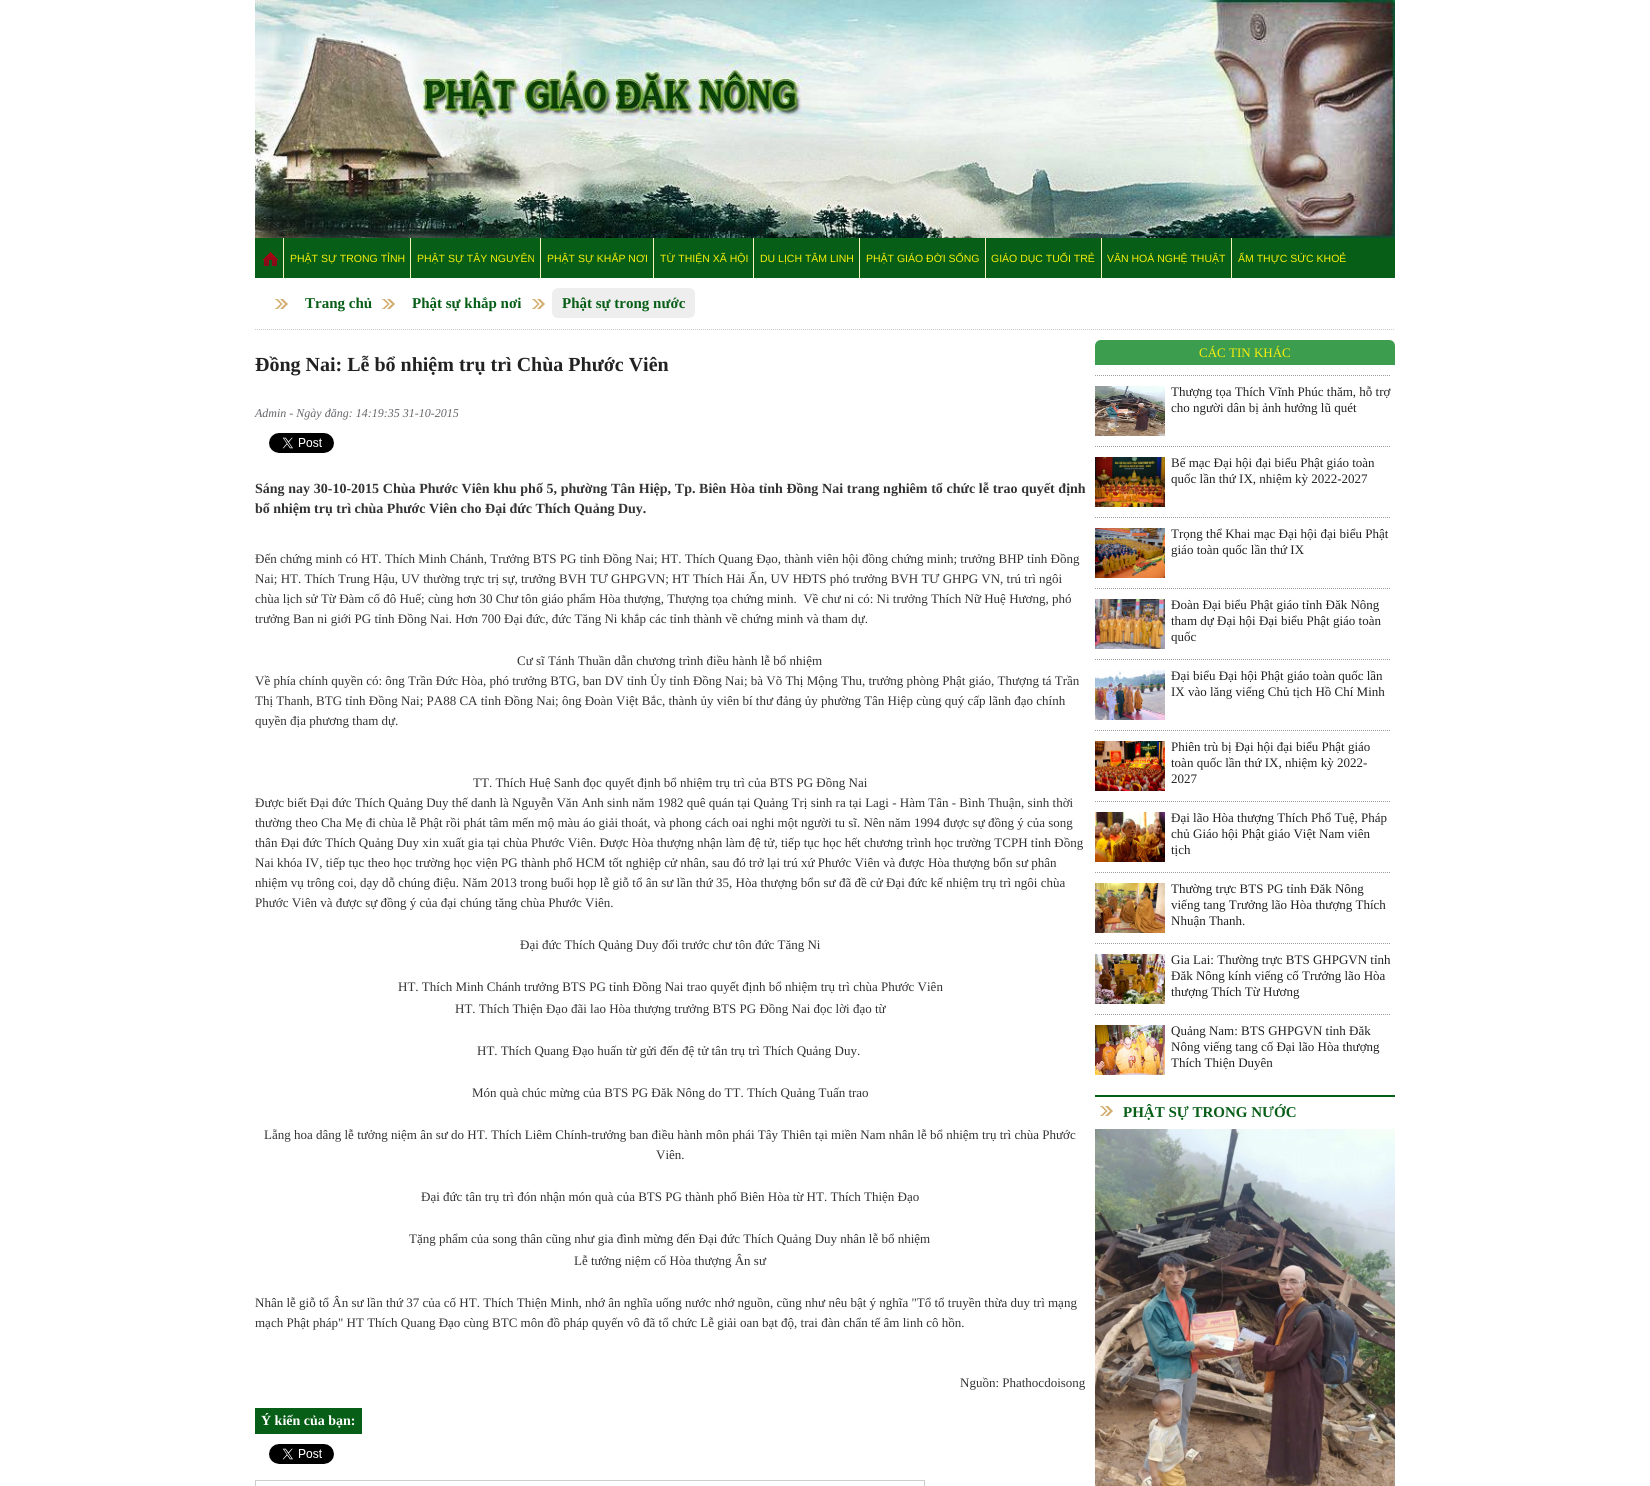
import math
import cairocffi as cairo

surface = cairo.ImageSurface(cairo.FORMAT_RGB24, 1650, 1486)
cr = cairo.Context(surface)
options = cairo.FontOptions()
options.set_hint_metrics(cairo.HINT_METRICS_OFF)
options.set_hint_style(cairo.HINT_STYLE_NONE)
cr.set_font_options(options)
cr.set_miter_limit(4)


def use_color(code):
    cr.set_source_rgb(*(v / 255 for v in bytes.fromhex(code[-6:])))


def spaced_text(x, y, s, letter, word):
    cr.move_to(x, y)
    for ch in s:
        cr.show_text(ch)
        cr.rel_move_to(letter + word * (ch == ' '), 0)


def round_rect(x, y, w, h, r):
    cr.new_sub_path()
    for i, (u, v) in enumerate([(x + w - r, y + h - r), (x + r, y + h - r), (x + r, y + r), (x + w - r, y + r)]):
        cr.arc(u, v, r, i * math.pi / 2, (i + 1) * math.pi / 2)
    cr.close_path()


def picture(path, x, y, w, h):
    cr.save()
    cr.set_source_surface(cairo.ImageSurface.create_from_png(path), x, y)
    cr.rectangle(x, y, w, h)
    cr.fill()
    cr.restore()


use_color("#ffffff")
cr.paint()
picture("img1.png", 255, 0, 1140, 238)
use_color("#075e17")
cr.rectangle(255, 238, 1140, 40)
cr.fill()
use_color("#f7f2b8")
cr.rectangle(283, 238, 1, 40)
cr.fill()
picture("img2.png", 263, 252, 15, 14)
cr.rectangle(410, 238, 1, 40)
cr.fill()
cr.select_font_face("Liberation Sans")
cr.set_font_size(10.5)
use_color("#f7ef0b")
cr.move_to(290, 262)
cr.show_text("PHẬT SỰ TRONG TỈNH")
use_color("#f7f2b8")
cr.rectangle(540, 238, 1, 40)
cr.fill()
use_color("#f7ef0b")
cr.move_to(417, 262)
cr.show_text("PHẬT SỰ TÂY NGUYÊN")
use_color("#f7f2b8")
cr.rectangle(653, 238, 1, 40)
cr.fill()
use_color("#f7ef0b")
cr.move_to(547, 262)
cr.show_text("PHẬT SỰ KHẮP NƠI")
use_color("#f7f2b8")
cr.rectangle(753, 238, 1, 40)
cr.fill()
use_color("#f7ef0b")
cr.move_to(660, 262)
cr.show_text("TỪ THIỆN XÃ HỘI")
use_color("#f7f2b8")
cr.rectangle(859, 238, 1, 40)
cr.fill()
use_color("#f7ef0b")
cr.move_to(760, 262)
cr.show_text("DU LỊCH TÂM LINH")
use_color("#f7f2b8")
cr.rectangle(985, 238, 1, 40)
cr.fill()
use_color("#f7ef0b")
cr.move_to(866, 262)
cr.show_text("PHẬT GIÁO ĐỜI SỐNG")
use_color("#f7f2b8")
cr.rectangle(1101, 238, 1, 40)
cr.fill()
use_color("#f7ef0b")
cr.move_to(991, 262)
cr.show_text("GIÁO DỤC TUỔI TRẺ")
use_color("#f7f2b8")
cr.rectangle(1231, 238, 1, 40)
cr.fill()
use_color("#f7ef0b")
cr.move_to(1107, 262)
cr.show_text("VĂN HOÁ NGHỆ THUẬT")
cr.move_to(1238, 262)
cr.show_text("ẨM THỰC SỨC KHOẺ")
picture("img3.png", 275, 299, 13, 10)
cr.select_font_face("Liberation Serif", cairo.FONT_SLANT_NORMAL, cairo.FONT_WEIGHT_BOLD)
cr.set_font_size(15)
use_color("#075e17")
cr.move_to(305, 308)
cr.show_text("Trang chủ")
picture("img3.png", 382, 299, 13, 10)
cr.move_to(412, 308)
cr.show_text("Phật sự khắp nơi")
picture("img3.png", 532, 299, 13, 10)
use_color("#eeeeee")
round_rect(552, 288, 143, 30, 6)
cr.fill()
use_color("#075e17")
cr.move_to(562, 308)
cr.show_text("Phật sự trong nước")
cr.new_path()
cr.move_to(255, 329.5)
cr.line_to(1395, 329.5)
use_color("#cccccc")
cr.set_line_width(1)
cr.set_dash([1, 1])
cr.stroke()
cr.set_font_size(20)
use_color("#222222")
cr.move_to(255, 371)
cr.show_text("Đồng Nai: Lễ bổ nhiệm trụ trì Chùa Phước Viên")
cr.select_font_face("Liberation Serif", cairo.FONT_SLANT_ITALIC)
cr.set_font_size(12)
use_color("#65666a")
cr.move_to(255, 417)
cr.show_text("Admin - Ngày đăng: 14:19:35 31-10-2015")
picture("img4.png", 269, 433, 65, 20)
cr.select_font_face("Liberation Serif", cairo.FONT_SLANT_NORMAL, cairo.FONT_WEIGHT_BOLD)
cr.set_font_size(14)
use_color("#333333")
spaced_text(255, 493, "Sáng nay 30-10-2015 Chùa Phước Viên khu phố 5, phường Tân Hiệp, Tp. Biên Hòa tỉnh Đồng Nai trang nghiêm tổ chức lễ trao quyết định", 0, 0.2)
cr.move_to(255, 513)
cr.show_text("bổ nhiệm trụ trì chùa Phước Viên cho Đại đức Thích Quảng Duy.")
cr.select_font_face("Liberation Serif")
cr.set_font_size(13)
cr.move_to(255, 563)
cr.show_text("Đến chứng minh có HT. Thích Minh Chánh, Trưởng BTS PG tỉnh Đồng Nai; HT. Thích Quang Đạo, thành viên hội đồng chứng minh; trưởng BHP tỉnh Đồng")
cr.move_to(255, 583)
cr.show_text("Nai; HT. Thích Trung Hậu, UV thường trực trị sự, trưởng BVH TƯ GHPGVN; HT Thích Hải Ấn, UV HĐTS phó trưởng BVH TƯ GHPG VN, trú trì ngôi")
cr.move_to(255, 603)
cr.show_text("chùa lịch sử Từ Đàm cố đô Huế; cùng hơn 30 Chư tôn giáo phẩm Hòa thượng, Thượng tọa chứng minh.  Về chư ni có: Ni trưởng Thích Nữ Huệ Hương, phó")
cr.move_to(255, 623)
cr.show_text("trưởng Ban ni giới PG tỉnh Đồng Nai. Hơn 700 Đại đức, đức Tăng Ni khắp các tỉnh thành về chứng minh và tham dự.")
cr.move_to(517, 665)
cr.show_text("Cư sĩ Tánh Thuần dẫn chương trình điều hành lễ bổ nhiệm")
cr.move_to(255, 685)
cr.show_text("Về phía chính quyền có: ông Trần Đức Hòa, phó trưởng BTG, ban DV tỉnh Ủy tỉnh Đồng Nai; bà Võ Thị Mộng Thu, trưởng phòng Phật giáo, Thượng tá Trần")
cr.move_to(255, 705)
cr.show_text("Thị Thanh, BTG tỉnh Đồng Nai; PA88 CA tỉnh Đồng Nai; ông Đoàn Việt Bắc, thành ủy viên bí thư đảng ủy phường Tân Hiệp cùng quý cấp lãnh đạo chính")
cr.move_to(255, 725)
cr.show_text("quyền địa phương tham dự.")
cr.move_to(473, 787)
cr.show_text("TT. Thích Huệ Sanh đọc quyết định bổ nhiệm trụ trì của BTS PG Đồng Nai")
cr.move_to(255, 807)
cr.show_text("Được biết Đại đức Thích Quảng Duy thế danh là Nguyễn Văn Anh sinh năm 1982 quê quán tại Quảng Trị sinh ra tại Lagi - Hàm Tân - Bình Thuận, sinh thời")
cr.move_to(255, 827)
cr.show_text("thường theo Cha Mẹ đi chùa lễ Phật rồi phát tâm mến mộ màu áo giải thoát, và phong cách oai nghi một người tu sĩ. Nên năm 1994 được sự đồng ý của song")
cr.move_to(255, 847)
cr.show_text("thân Đại đức Thích Quảng Duy xin xuất gia tại chùa Phước Viên. Được Hòa thượng nhận làm đệ tử, tiếp tục học hết chương trình học trường TCPH tỉnh Đồng")
cr.move_to(255, 867)
cr.show_text("Nai khóa IV, tiếp tục theo học trường học viện PG thành phố HCM tốt nghiệp cử nhân, sau đó trở lại trú xứ Phước Viên và được Hòa thượng bổn sư phân")
cr.move_to(255, 887)
cr.show_text("nhiệm vụ trông coi, dạy dỗ chúng điệu. Năm 2013 trong buổi họp lễ giỗ tổ ân sư lần thứ 35, Hòa thượng bổn sư đã đề cử Đại đức kế nhiệm trụ trì ngôi chùa")
cr.move_to(255, 907)
cr.show_text("Phước Viên và được sự đồng ý của đại chúng tăng chùa Phước Viên.")
cr.move_to(520, 949)
cr.show_text("Đại đức Thích Quảng Duy đối trước chư tôn đức Tăng Ni")
cr.move_to(398, 991)
cr.show_text("HT. Thích Minh Chánh trưởng BTS PG tỉnh Đồng Nai trao quyết định bổ nhiệm trụ trì chùa Phước Viên")
cr.move_to(455, 1013)
cr.show_text("HT. Thích Thiện Đạo đãi lao Hòa thượng trưởng BTS PG Đồng Nai đọc lời đạo từ")
cr.move_to(477, 1055)
cr.show_text("HT. Thích Quang Đạo huấn từ gửi đến đệ tử tân trụ trì Thích Quảng Duy.")
cr.move_to(472, 1097)
cr.show_text("Món quà chúc mừng của BTS PG Đăk Nông do TT. Thích Quảng Tuấn trao")
cr.move_to(264, 1139)
cr.show_text("Lẵng hoa dâng lễ tưởng niệm ân sư do HT. Thích Liêm Chính-trưởng ban điều hành môn phái Tây Thiên tại miền Nam nhân lễ bổ nhiệm trụ trì chùa Phước")
cr.move_to(656, 1159)
cr.show_text("Viên.")
cr.move_to(421, 1201)
cr.show_text("Đại đức tân trụ trì đón nhận món quà của BTS PG thành phố Biên Hòa từ HT. Thích Thiện Đạo")
cr.move_to(409, 1243)
cr.show_text("Tặng phẩm của song thân cũng như gia đình mừng đến Đại đức Thích Quảng Duy nhân lễ bổ nhiệm")
cr.move_to(574, 1265)
cr.show_text("Lễ tưởng niệm cố Hòa thượng Ân sư")
cr.move_to(255, 1307)
cr.show_text("Nhân lễ giỗ tổ Ân sư lần thứ 37 của cố HT. Thích Thiện Minh, nhớ ân nghĩa uống nước nhớ nguồn, cũng như nêu bật ý nghĩa \"Tổ tổ truyền thừa duy trì mạng")
cr.move_to(255, 1327)
cr.show_text("mạch Phật pháp\" HT Thích Quang Đạo cùng BTC môn đồ pháp quyến vô đã tổ chức Lễ giải oan bạt độ, trai đàn chẩn tế âm linh cô hồn.")
cr.move_to(960, 1387)
cr.show_text("Nguồn: Phathocdoisong")
use_color("#075e17")
cr.rectangle(255, 1408, 107, 26)
cr.fill()
cr.select_font_face("Liberation Serif", cairo.FONT_SLANT_NORMAL, cairo.FONT_WEIGHT_BOLD)
cr.set_font_size(14)
use_color("#ffffff")
cr.move_to(261, 1425)
cr.show_text("Ý kiến của bạn:")
picture("img4.png", 269, 1444, 65, 20)
cr.rectangle(255.5, 1480.5, 669, 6)
use_color("#cccccc")
cr.set_dash([])
cr.stroke()
use_color("#3d9d4f")
cr.new_path()
cr.move_to(1101, 340)
cr.line_to(1389, 340)
cr.curve_to(1392.5, 340, 1395, 342.5, 1395, 346)
cr.line_to(1395, 365)
cr.line_to(1095, 365)
cr.line_to(1095, 346)
cr.curve_to(1095, 342.5, 1097.5, 340, 1101, 340)
cr.close_path()
cr.fill()
cr.select_font_face("Liberation Serif")
cr.set_font_size(13)
use_color("#f7ef0b")
cr.move_to(1199, 357)
cr.show_text("CÁC TIN KHÁC")
cr.new_path()
cr.move_to(1095, 375.5)
cr.line_to(1391, 375.5)
use_color("#a19c9c")
cr.set_dash([1, 1])
cr.stroke()
picture("img5.png", 1095, 386, 70, 50)
use_color("#222222")
cr.move_to(1171, 396)
cr.show_text("Thượng tọa Thích Vĩnh Phúc thăm, hỗ trợ")
cr.move_to(1171, 412)
cr.show_text("cho người dân bị ảnh hưởng lũ quét")
cr.new_path()
cr.move_to(1095, 446.5)
cr.line_to(1391, 446.5)
use_color("#a19c9c")
cr.stroke()
picture("img6.png", 1095, 457, 70, 50)
use_color("#222222")
cr.move_to(1171, 467)
cr.show_text("Bế mạc Đại hội đại biểu Phật giáo toàn")
cr.move_to(1171, 483)
cr.show_text("quốc lần thứ IX, nhiệm kỳ 2022-2027")
cr.new_path()
cr.move_to(1095, 517.5)
cr.line_to(1391, 517.5)
use_color("#a19c9c")
cr.stroke()
picture("img7.png", 1095, 528, 70, 50)
use_color("#222222")
cr.move_to(1171, 538)
cr.show_text("Trọng thể Khai mạc Đại hội đại biểu Phật")
cr.move_to(1171, 554)
cr.show_text("giáo toàn quốc lần thứ IX")
cr.new_path()
cr.move_to(1095, 588.5)
cr.line_to(1391, 588.5)
use_color("#a19c9c")
cr.stroke()
picture("img8.png", 1095, 599, 70, 50)
use_color("#222222")
cr.move_to(1171, 609)
cr.show_text("Đoàn Đại biểu Phật giáo tỉnh Đăk Nông")
cr.move_to(1171, 625)
cr.show_text("tham dự Đại hội Đại biểu Phật giáo toàn")
cr.move_to(1171, 641)
cr.show_text("quốc")
cr.new_path()
cr.move_to(1095, 659.5)
cr.line_to(1391, 659.5)
use_color("#a19c9c")
cr.stroke()
picture("img9.png", 1095, 670, 70, 50)
use_color("#222222")
cr.move_to(1171, 680)
cr.show_text("Đại biểu Đại hội Phật giáo toàn quốc lần")
cr.move_to(1171, 696)
cr.show_text("IX vào lăng viếng Chủ tịch Hồ Chí Minh")
cr.new_path()
cr.move_to(1095, 730.5)
cr.line_to(1391, 730.5)
use_color("#a19c9c")
cr.stroke()
picture("img10.png", 1095, 741, 70, 50)
use_color("#222222")
cr.move_to(1171, 751)
cr.show_text("Phiên trù bị Đại hội đại biểu Phật giáo")
cr.move_to(1171, 767)
cr.show_text("toàn quốc lần thứ IX, nhiệm kỳ 2022-")
cr.move_to(1171, 783)
cr.show_text("2027")
cr.new_path()
cr.move_to(1095, 801.5)
cr.line_to(1391, 801.5)
use_color("#a19c9c")
cr.stroke()
picture("img11.png", 1095, 812, 70, 50)
use_color("#222222")
cr.move_to(1171, 822)
cr.show_text("Đại lão Hòa thượng Thích Phổ Tuệ, Pháp")
cr.move_to(1171, 838)
cr.show_text("chủ Giáo hội Phật giáo Việt Nam viên")
cr.move_to(1171, 854)
cr.show_text("tịch")
cr.new_path()
cr.move_to(1095, 872.5)
cr.line_to(1391, 872.5)
use_color("#a19c9c")
cr.stroke()
picture("img12.png", 1095, 883, 70, 50)
use_color("#222222")
cr.move_to(1171, 893)
cr.show_text("Thường trực BTS PG tỉnh Đăk Nông")
cr.move_to(1171, 909)
cr.show_text("viếng tang Trưởng lão Hòa thượng Thích")
cr.move_to(1171, 925)
cr.show_text("Nhuận Thanh.")
cr.new_path()
cr.move_to(1095, 943.5)
cr.line_to(1391, 943.5)
use_color("#a19c9c")
cr.stroke()
picture("img13.png", 1095, 954, 70, 50)
use_color("#222222")
cr.move_to(1171, 964)
cr.show_text("Gia Lai: Thường trực BTS GHPGVN tỉnh")
cr.move_to(1171, 980)
cr.show_text("Đăk Nông kính viếng cố Trưởng lão Hòa")
cr.move_to(1171, 996)
cr.show_text("thượng Thích Từ Hương")
cr.new_path()
cr.move_to(1095, 1014.5)
cr.line_to(1391, 1014.5)
use_color("#a19c9c")
cr.stroke()
picture("img14.png", 1095, 1025, 70, 50)
use_color("#222222")
cr.move_to(1171, 1035)
cr.show_text("Quảng Nam: BTS GHPGVN tỉnh Đăk")
cr.move_to(1171, 1051)
cr.show_text("Nông viếng tang cố Đại lão Hòa thượng")
cr.move_to(1171, 1067)
cr.show_text("Thích Thiện Duyên")
picture("img3.png", 1100, 1106, 13, 10)
use_color("#075e17")
cr.rectangle(1095, 1095, 300, 2)
cr.fill()
cr.select_font_face("Liberation Serif", cairo.FONT_SLANT_NORMAL, cairo.FONT_WEIGHT_BOLD)
cr.set_font_size(15)
cr.move_to(1123, 1117)
cr.show_text("PHẬT SỰ TRONG NƯỚC")
picture("img15.png", 1095, 1129, 300, 357)
surface.write_to_png("result.png")
